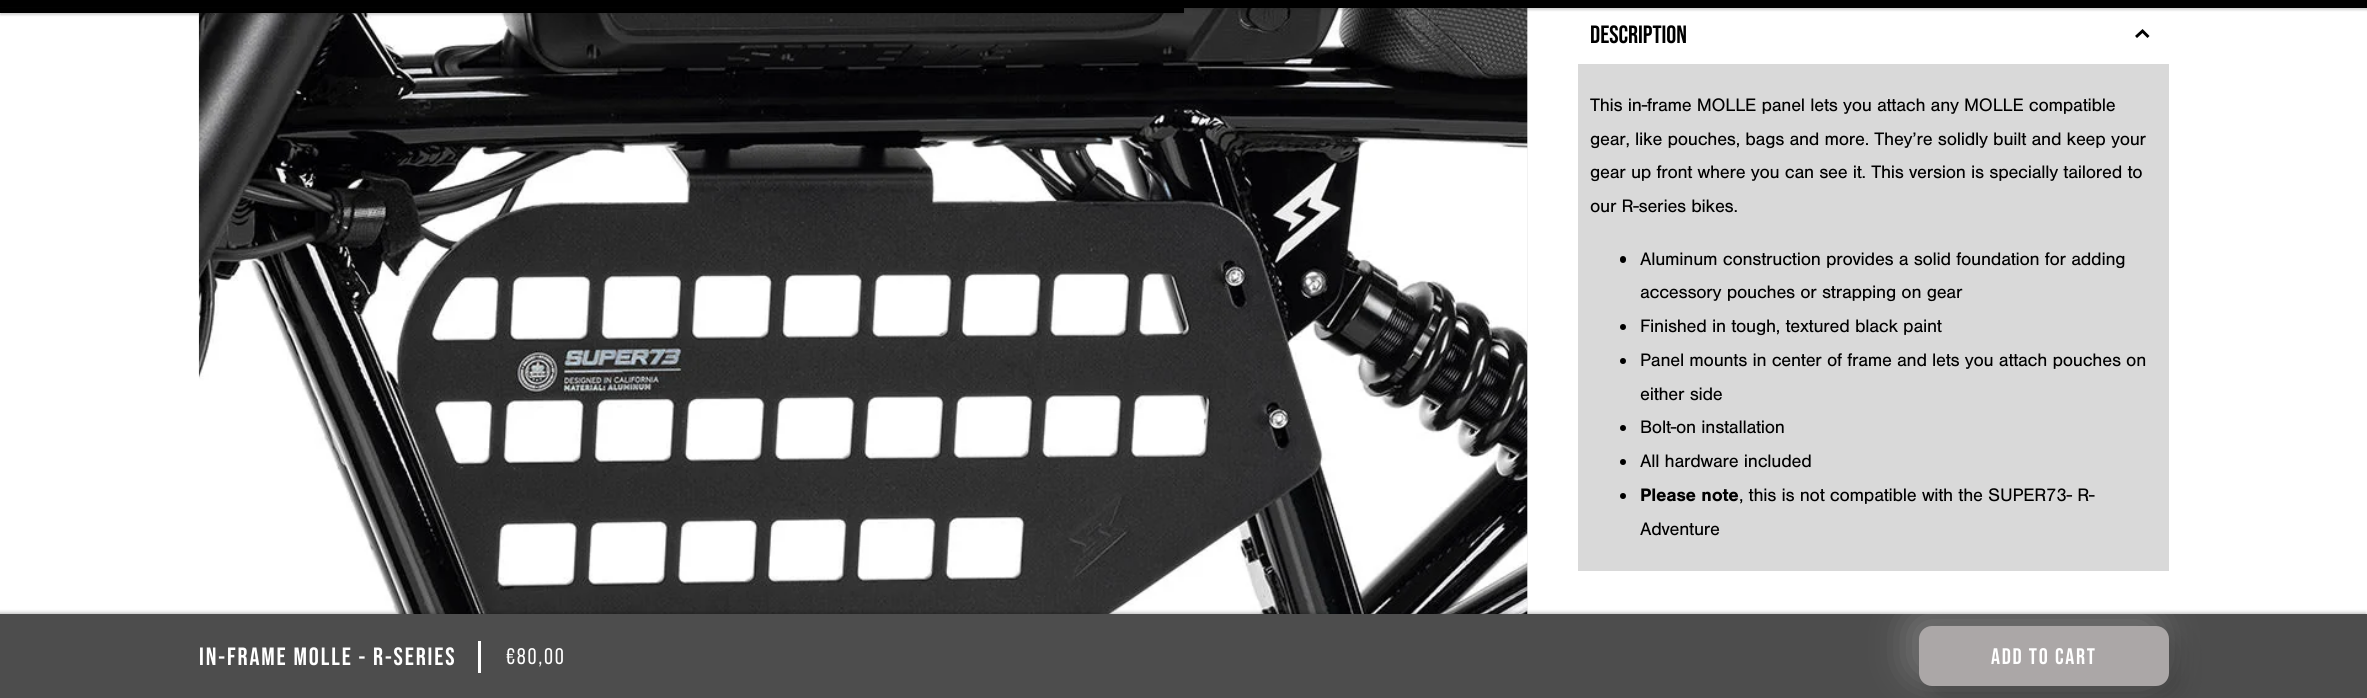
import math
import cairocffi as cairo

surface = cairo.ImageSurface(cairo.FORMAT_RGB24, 2367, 698)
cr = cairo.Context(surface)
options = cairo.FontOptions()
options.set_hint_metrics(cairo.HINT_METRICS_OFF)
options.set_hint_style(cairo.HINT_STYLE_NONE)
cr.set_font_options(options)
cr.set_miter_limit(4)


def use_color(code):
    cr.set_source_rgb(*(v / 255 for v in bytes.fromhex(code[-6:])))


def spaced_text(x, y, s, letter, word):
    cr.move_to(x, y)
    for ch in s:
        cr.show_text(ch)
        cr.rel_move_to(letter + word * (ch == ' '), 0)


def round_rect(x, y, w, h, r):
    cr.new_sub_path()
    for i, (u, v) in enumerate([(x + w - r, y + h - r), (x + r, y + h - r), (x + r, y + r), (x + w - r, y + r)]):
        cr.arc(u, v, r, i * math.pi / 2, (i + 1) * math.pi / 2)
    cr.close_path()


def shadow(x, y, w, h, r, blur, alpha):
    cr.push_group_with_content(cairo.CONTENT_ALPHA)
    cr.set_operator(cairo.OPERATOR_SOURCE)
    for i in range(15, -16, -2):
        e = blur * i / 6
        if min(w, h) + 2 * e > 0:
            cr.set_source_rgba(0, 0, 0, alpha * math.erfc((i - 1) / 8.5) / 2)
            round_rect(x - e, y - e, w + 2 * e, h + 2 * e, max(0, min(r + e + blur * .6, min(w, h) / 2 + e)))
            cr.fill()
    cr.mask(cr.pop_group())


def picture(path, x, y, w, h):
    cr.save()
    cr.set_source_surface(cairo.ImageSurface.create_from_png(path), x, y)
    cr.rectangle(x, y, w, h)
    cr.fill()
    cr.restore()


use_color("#ffffff")
cr.paint()
use_color("#ededed")
cr.rectangle(1527, 8, 1, 606)
cr.fill()
picture("img1.png", 198, 8, 1330, 606)
use_color("#1c1c1c")
shadow(0, -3, 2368, 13, 0, 1, 0.2)
use_color("#000000")
cr.rectangle(0, 0, 2367, 8)
cr.fill()
use_color("#1c1c1c")
shadow(0, 8, 1184, 7, 0, 1, 0.2)
use_color("#000000")
cr.rectangle(0, 8, 1184, 5)
cr.fill()
cr.select_font_face("Bebas Neue", cairo.FONT_SLANT_NORMAL, cairo.FONT_WEIGHT_BOLD)
cr.set_font_size(25)
cr.move_to(1590, 43)
cr.show_text("DESCRIPTION")
cr.new_path()
cr.move_to(2148.5, 37)
cr.line_to(2142.5, 31)
cr.line_to(2136, 37)
cr.set_line_width(2.9)
cr.stroke()
use_color("#d9d9d9")
cr.rectangle(1578, 64, 591, 507)
cr.fill()
cr.select_font_face("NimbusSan")
cr.set_font_size(18.75)
use_color("#000000")
spaced_text(1590, 111, "This in-frame MOLLE panel lets you attach any MOLLE compatible", -0.25, 0)
spaced_text(1590, 145, "gear, like pouches, bags and more. They’re solidly built and keep your", -0.25, 0)
spaced_text(1590, 178, "gear up front where you can see it. This version is specially tailored to", -0.25, 0)
spaced_text(1590, 212, "our R-series bikes.", -0.25, 0)
round_rect(1620, 256, 6, 7, 3)
cr.fill()
spaced_text(1640, 265, "Aluminum construction provides a solid foundation for adding", -0.25, 0)
spaced_text(1640, 298, "accessory pouches or strapping on gear", -0.25, 0)
cr.new_path()
cr.arc(1623, 327, 3, 0, 2 * math.pi)
cr.fill()
spaced_text(1640, 332, "Finished in tough, textured black paint", -0.25, 0)
cr.new_path()
cr.arc(1623, 361, 3, 0, 2 * math.pi)
cr.fill()
spaced_text(1640, 366, "Panel mounts in center of frame and lets you attach pouches on", -0.25, 0)
spaced_text(1640, 400, "either side", -0.25, 0)
cr.new_path()
cr.arc(1623, 428, 3, 0, 2 * math.pi)
cr.fill()
spaced_text(1640, 433, "Bolt-on installation", -0.25, 0)
cr.new_path()
cr.arc(1623, 462, 3, 0, 2 * math.pi)
cr.fill()
spaced_text(1640, 467, "All hardware included", -0.25, 0)
cr.new_path()
cr.arc(1623, 496, 3, 0, 2 * math.pi)
cr.fill()
cr.select_font_face("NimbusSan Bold", cairo.FONT_SLANT_NORMAL, cairo.FONT_WEIGHT_BOLD)
spaced_text(1640, 501, "Please note", -0.25, 0)
cr.select_font_face("NimbusSan")
spaced_text(1739, 501, ", this is not compatible with the SUPER73- R-", -0.25, 0)
spaced_text(1640, 535, "Adventure", -0.25, 0)
use_color("#000000")
shadow(-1, 613, 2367, 85, 0, 2, 0.29)
use_color("#4d4d4d")
cr.rectangle(0, 614, 2367, 84)
cr.fill()
cr.select_font_face("Bebas Neue", cairo.FONT_SLANT_NORMAL, cairo.FONT_WEIGHT_BOLD)
cr.set_font_size(25)
use_color("#ffffff")
spaced_text(199, 665, "IN-FRAME MOLLE - R-SERIES", 1.9, 0)
cr.rectangle(478, 641, 3, 32)
cr.fill()
cr.select_font_face("Bebas Neue")
cr.set_font_size(22.5)
spaced_text(506, 664, "€80,00", 1.75, 0)
use_color("#000000")
shadow(1929, 636, 250, 60, 13, 12.5, 0.2)
use_color("#ffffff")
shadow(1909, 616, 250, 60, 13, 19, 0.25)
use_color("#aba7a7")
round_rect(1919, 626, 250, 60, 13)
cr.fill()
cr.select_font_face("Bebas Neue", cairo.FONT_SLANT_NORMAL, cairo.FONT_WEIGHT_BOLD)
use_color("#ffffff")
spaced_text(1991, 664, "ADD TO CART", 1.75, 0)
surface.write_to_png("result.png")
